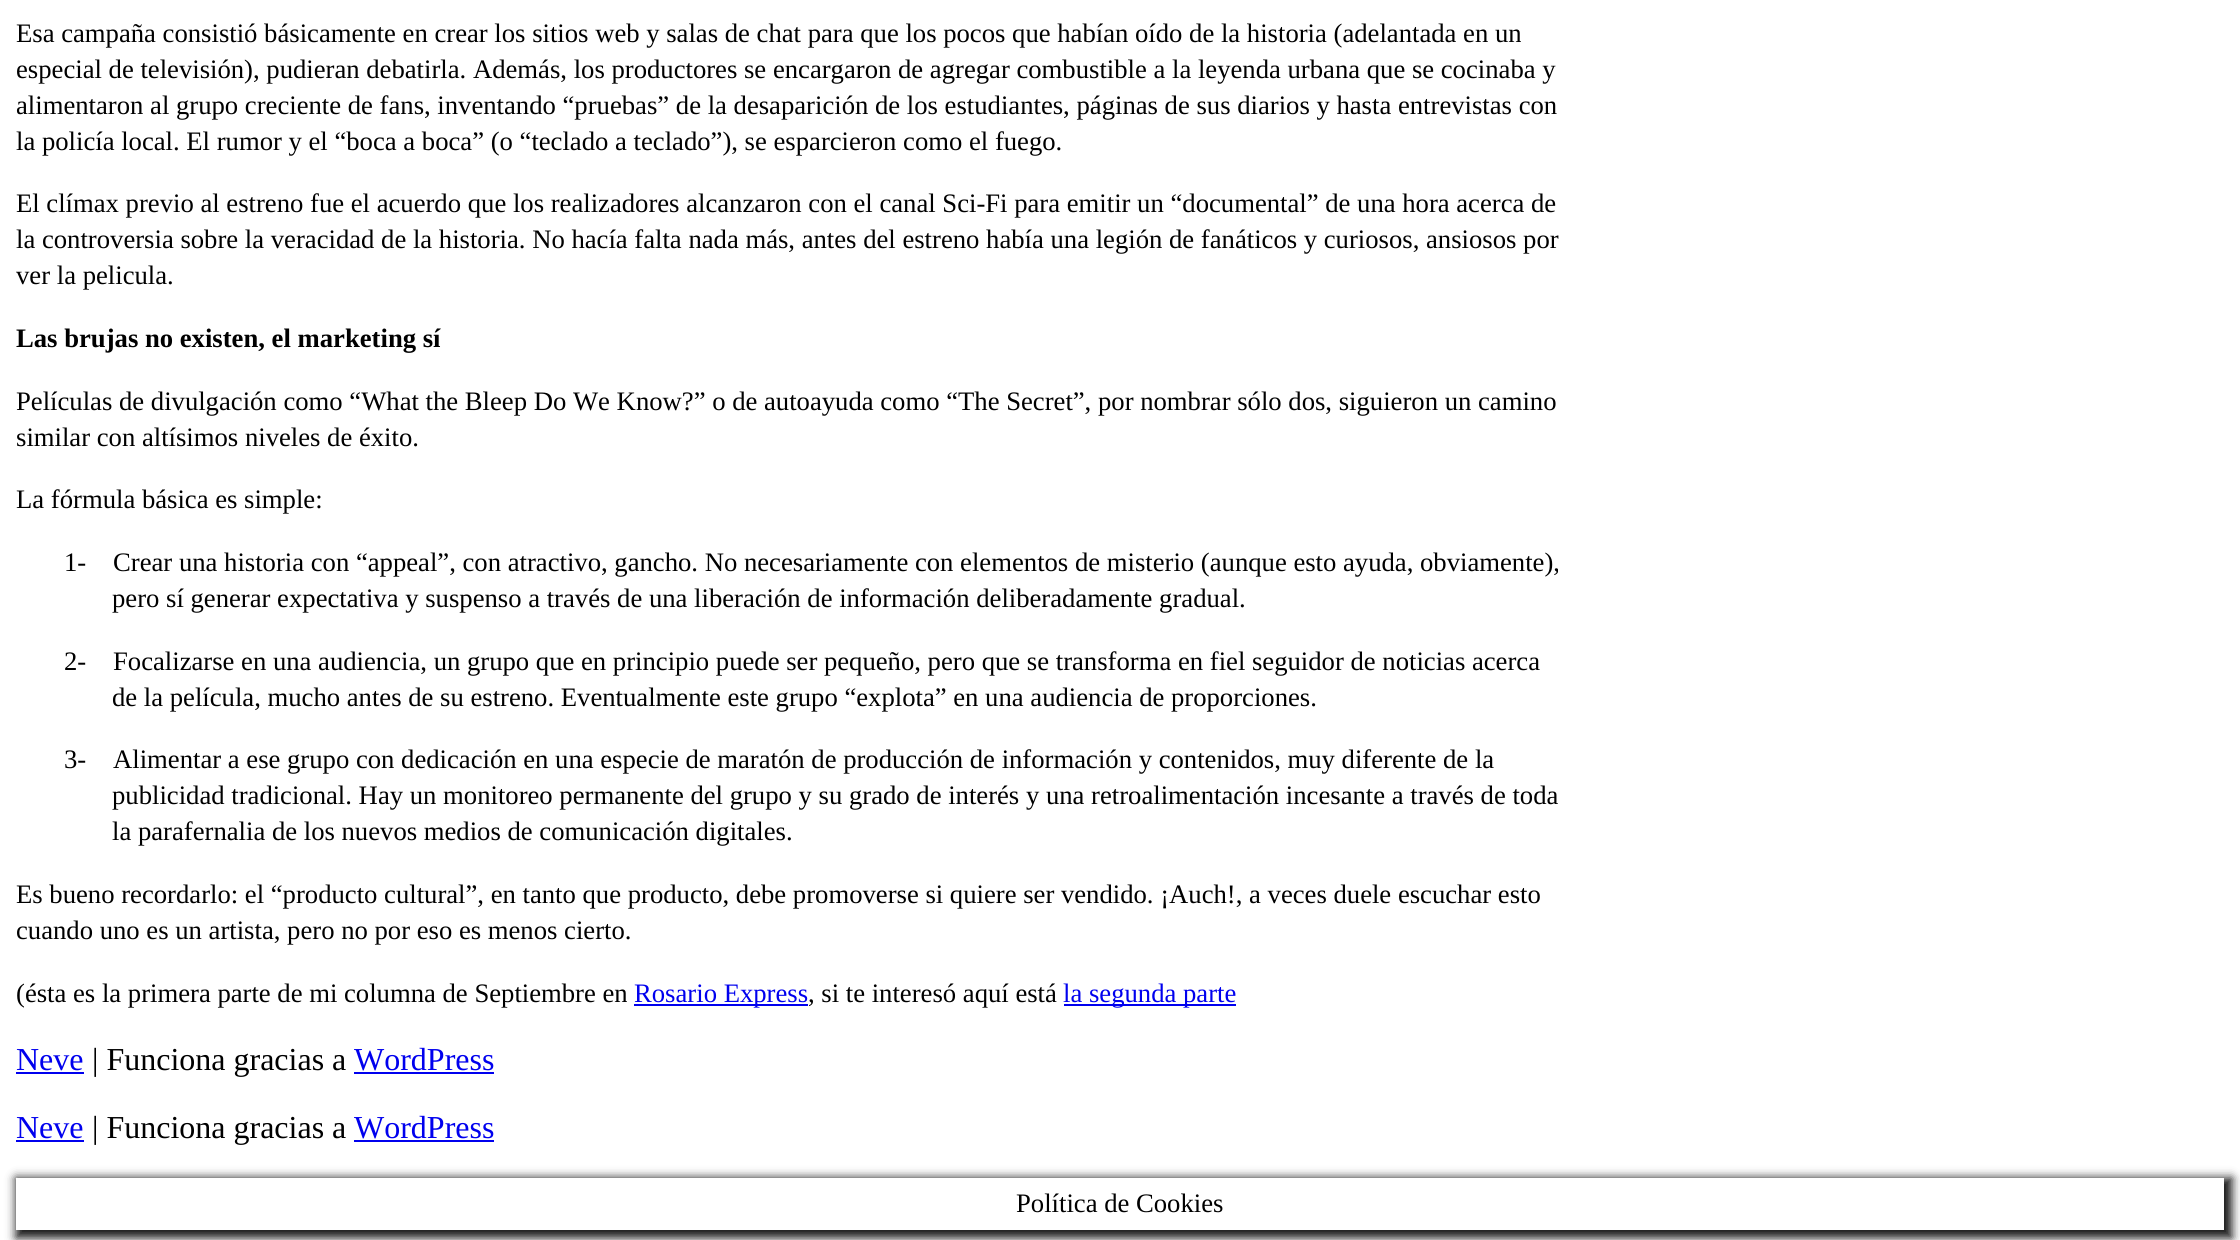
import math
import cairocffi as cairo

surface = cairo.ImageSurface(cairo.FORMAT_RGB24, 2240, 1240)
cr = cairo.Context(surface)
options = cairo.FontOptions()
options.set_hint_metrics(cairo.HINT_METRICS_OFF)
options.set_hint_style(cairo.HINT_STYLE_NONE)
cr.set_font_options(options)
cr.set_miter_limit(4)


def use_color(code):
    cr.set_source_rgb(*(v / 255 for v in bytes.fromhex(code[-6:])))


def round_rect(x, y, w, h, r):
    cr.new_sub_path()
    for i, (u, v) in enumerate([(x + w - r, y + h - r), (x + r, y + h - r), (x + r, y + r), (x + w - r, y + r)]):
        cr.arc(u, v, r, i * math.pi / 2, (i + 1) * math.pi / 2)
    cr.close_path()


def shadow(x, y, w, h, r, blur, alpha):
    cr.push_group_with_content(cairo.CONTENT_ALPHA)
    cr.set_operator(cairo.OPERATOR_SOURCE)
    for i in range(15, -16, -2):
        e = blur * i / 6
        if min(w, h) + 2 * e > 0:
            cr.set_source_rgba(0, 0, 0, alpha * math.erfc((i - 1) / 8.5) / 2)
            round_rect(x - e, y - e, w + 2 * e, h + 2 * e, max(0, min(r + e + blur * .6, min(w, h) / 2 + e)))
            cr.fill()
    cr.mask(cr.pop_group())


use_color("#ffffff")
cr.paint()
cr.select_font_face("Liberation Serif")
cr.set_font_size(26.67)
use_color("#000000")
cr.move_to(16, 42)
cr.show_text("Esa campaña consistió básicamente en crear los sitios web y salas de chat para que los pocos que habían oído de la historia (adelantada en un")
cr.move_to(16, 78)
cr.show_text("especial de televisión), pudieran debatirla. Además, los productores se encargaron de agregar combustible a la leyenda urbana que se cocinaba y")
cr.move_to(16, 114)
cr.show_text("alimentaron al grupo creciente de fans, inventando “pruebas” de la desaparición de los estudiantes, páginas de sus diarios y hasta entrevistas con")
cr.move_to(16, 150)
cr.show_text("la policía local. El rumor y el “boca a boca” (o “teclado a teclado”), se esparcieron como el fuego.")
cr.move_to(16, 212)
cr.show_text("El clímax previo al estreno fue el acuerdo que los realizadores alcanzaron con el canal Sci-Fi para emitir un “documental” de una hora acerca de")
cr.move_to(16, 248)
cr.show_text("la controversia sobre la veracidad de la historia. No hacía falta nada más, antes del estreno había una legión de fanáticos y curiosos, ansiosos por")
cr.move_to(16, 284)
cr.show_text("ver la pelicula.")
cr.select_font_face("Liberation Serif", cairo.FONT_SLANT_NORMAL, cairo.FONT_WEIGHT_BOLD)
cr.move_to(16, 347)
cr.show_text("Las brujas no existen, el marketing sí")
cr.select_font_face("Liberation Serif")
cr.move_to(16, 410)
cr.show_text("Películas de divulgación como “What the Bleep Do We Know?” o de autoayuda como “The Secret”, por nombrar sólo dos, siguieron un camino")
cr.move_to(16, 446)
cr.show_text("similar con altísimos niveles de éxito.")
cr.move_to(16, 508)
cr.show_text("La fórmula básica es simple:")
cr.move_to(64, 571)
cr.show_text("1-")
cr.move_to(113, 571)
cr.show_text("Crear una historia con “appeal”, con atractivo, gancho. No necesariamente con elementos de misterio (aunque esto ayuda, obviamente),")
cr.move_to(112, 607)
cr.show_text("pero sí generar expectativa y suspenso a través de una liberación de información deliberadamente gradual.")
cr.move_to(64, 670)
cr.show_text("2-")
cr.move_to(113, 670)
cr.show_text("Focalizarse en una audiencia, un grupo que en principio puede ser pequeño, pero que se transforma en fiel seguidor de noticias acerca")
cr.move_to(112, 706)
cr.show_text("de la película, mucho antes de su estreno. Eventualmente este grupo “explota” en una audiencia de proporciones.")
cr.move_to(64, 768)
cr.show_text("3-")
cr.move_to(113, 768)
cr.show_text("Alimentar a ese grupo con dedicación en una especie de maratón de producción de información y contenidos, muy diferente de la")
cr.move_to(112, 804)
cr.show_text("publicidad tradicional. Hay un monitoreo permanente del grupo y su grado de interés y una retroalimentación incesante a través de toda")
cr.move_to(112, 840)
cr.show_text("la parafernalia de los nuevos medios de comunicación digitales.")
cr.move_to(16, 903)
cr.show_text("Es bueno recordarlo: el “producto cultural”, en tanto que producto, debe promoverse si quiere ser vendido. ¡Auch!, a veces duele escuchar esto")
cr.move_to(16, 939)
cr.show_text("cuando uno es un artista, pero no por eso es menos cierto.")
cr.move_to(16, 1002)
cr.show_text("(ésta es la primera parte de mi columna de Septiembre en")
use_color("#0000ee")
cr.rectangle(634, 1004, 174, 2)
cr.fill()
cr.move_to(634, 1002)
cr.show_text("Rosario Express")
use_color("#000000")
cr.move_to(808, 1002)
cr.show_text(", si te interesó aquí está")
use_color("#0000ee")
cr.rectangle(1064, 1004, 172, 2)
cr.fill()
cr.move_to(1063, 1002)
cr.show_text("la segunda parte")
cr.set_font_size(32)
cr.move_to(16, 1070)
cr.show_text("Neve")
cr.rectangle(16, 1072, 68, 2)
cr.fill()
use_color("#000000")
cr.move_to(92, 1070)
cr.show_text("| Funciona gracias a")
use_color("#0000ee")
cr.move_to(354, 1070)
cr.show_text("WordPress")
cr.rectangle(354, 1072, 140, 2)
cr.fill()
cr.move_to(16, 1138)
cr.show_text("Neve")
cr.rectangle(16, 1140, 68, 2)
cr.fill()
use_color("#000000")
cr.move_to(92, 1138)
cr.show_text("| Funciona gracias a")
use_color("#0000ee")
cr.move_to(354, 1138)
cr.show_text("WordPress")
cr.rectangle(354, 1140, 140, 2)
cr.fill()
cr.save()
cr.set_fill_rule(cairo.FILL_RULE_EVEN_ODD)
cr.new_path()
cr.move_to(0, 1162)
cr.line_to(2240, 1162)
cr.line_to(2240, 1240)
cr.line_to(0, 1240)
cr.close_path()
cr.move_to(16, 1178)
cr.line_to(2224, 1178)
cr.line_to(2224, 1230)
cr.line_to(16, 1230)
cr.close_path()
cr.clip()
use_color("#161616")
shadow(16, 1178, 2216, 60, 0, 5, 1)
cr.restore()
cr.set_font_size(26.67)
use_color("#000000")
cr.move_to(1016, 1212)
cr.show_text("Política de Cookies")
surface.write_to_png("result.png")
